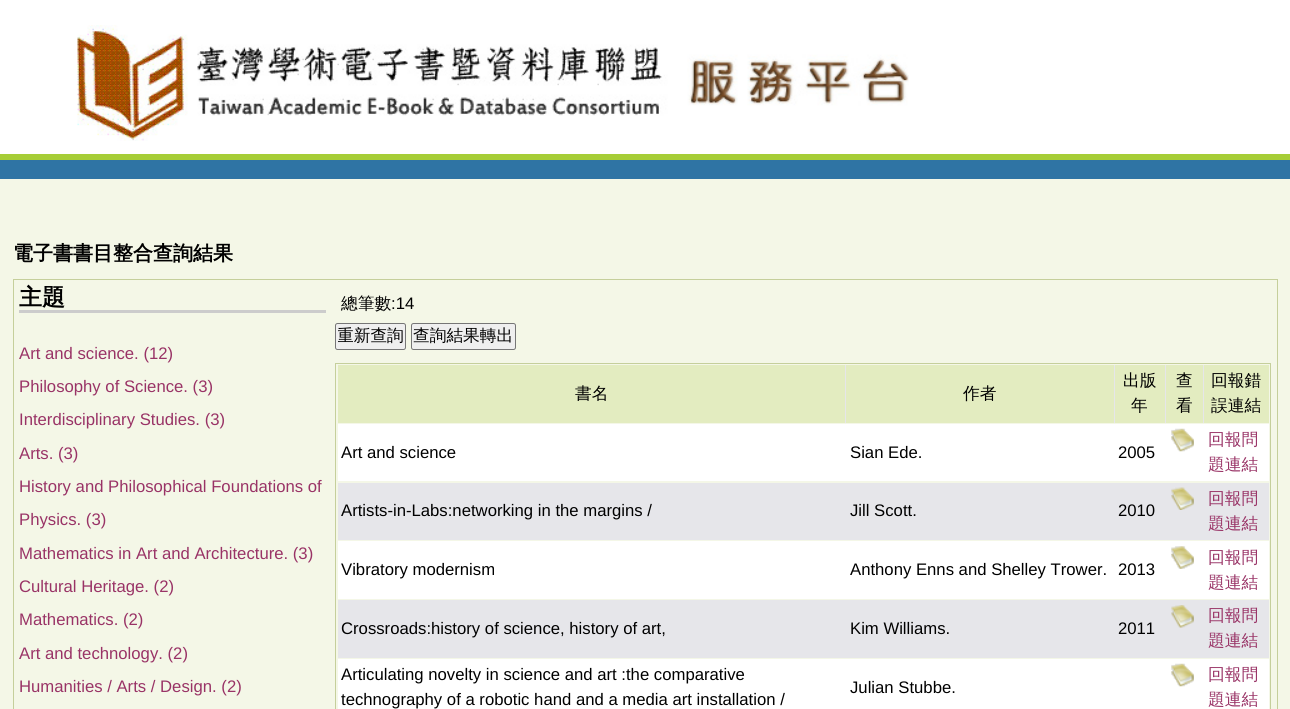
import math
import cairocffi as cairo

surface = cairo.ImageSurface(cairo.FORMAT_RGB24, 1290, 709)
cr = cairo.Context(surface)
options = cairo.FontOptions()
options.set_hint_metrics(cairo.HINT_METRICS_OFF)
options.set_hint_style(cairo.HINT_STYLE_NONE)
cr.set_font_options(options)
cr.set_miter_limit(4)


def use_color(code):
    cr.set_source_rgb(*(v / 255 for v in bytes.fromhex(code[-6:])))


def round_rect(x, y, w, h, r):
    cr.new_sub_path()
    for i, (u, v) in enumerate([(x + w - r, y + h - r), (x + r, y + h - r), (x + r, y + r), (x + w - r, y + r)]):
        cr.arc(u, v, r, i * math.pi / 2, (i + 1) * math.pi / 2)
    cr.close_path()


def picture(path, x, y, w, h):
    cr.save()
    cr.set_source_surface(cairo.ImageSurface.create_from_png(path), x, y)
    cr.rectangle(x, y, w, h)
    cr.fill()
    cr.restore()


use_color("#f4f7e7")
cr.paint()
use_color("#ffffff")
cr.rectangle(0, 0, 1290, 154)
cr.fill()
use_color("#a6cd37")
cr.rectangle(0, 154, 1290, 6)
cr.fill()
picture("img1.png", 77, 25, 832, 116)
use_color("#2f74a4")
cr.rectangle(0, 160, 1290, 19)
cr.fill()
cr.select_font_face("WenQuanYi Zen Hei", cairo.FONT_SLANT_NORMAL, cairo.FONT_WEIGHT_BOLD)
cr.set_font_size(20)
use_color("#000000")
cr.move_to(13, 260)
cr.show_text("電子書書目整合查詢結果")
cr.rectangle(13.5, 279.5, 1264, 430)
use_color("#c5cf9b")
cr.set_line_width(1)
cr.stroke()
use_color("#cccccc")
cr.rectangle(19, 310, 307, 3)
cr.fill()
cr.set_font_size(23)
use_color("#000000")
cr.move_to(19, 305)
cr.show_text("主題")
cr.select_font_face("Liberation Sans")
cr.set_font_size(16.7)
use_color("#993366")
cr.move_to(19, 359)
cr.show_text("Art and science. (12)")
cr.move_to(19, 392)
cr.show_text("Philosophy of Science. (3)")
cr.move_to(19, 425)
cr.show_text("Interdisciplinary Studies. (3)")
cr.move_to(19, 459)
cr.show_text("Arts. (3)")
cr.move_to(19, 492)
cr.show_text("History and Philosophical Foundations of")
cr.move_to(19, 525)
cr.show_text("Physics. (3)")
cr.move_to(19, 559)
cr.show_text("Mathematics in Art and Architecture. (3)")
cr.move_to(19, 592)
cr.show_text("Cultural Heritage. (2)")
cr.move_to(19, 625)
cr.show_text("Mathematics. (2)")
cr.move_to(19, 659)
cr.show_text("Art and technology. (2)")
cr.move_to(19, 692)
cr.show_text("Humanities / Arts / Design. (2)")
cr.select_font_face("WenQuanYi Zen Hei Medium")
use_color("#000000")
cr.move_to(341, 309)
cr.show_text("總筆數")
cr.select_font_face("Liberation Sans")
cr.move_to(391, 309)
cr.show_text(":14")
use_color("#efefef")
round_rect(335.5, 323.5, 70, 26, 2)
cr.fill_preserve()
use_color("#767676")
cr.stroke()
cr.save()
cr.rectangle(338, 325, 66, 23)
cr.clip()
cr.select_font_face("WenQuanYi Zen Hei Medium")
use_color("#000000")
cr.move_to(337, 341)
cr.show_text("重新查詢")
cr.restore()
use_color("#efefef")
round_rect(411.5, 323.5, 104, 26, 2)
cr.fill_preserve()
use_color("#767676")
cr.stroke()
cr.select_font_face("WenQuanYi Zen Hei Medium")
use_color("#000000")
cr.move_to(413, 341)
cr.show_text("查詢結果轉出")
cr.rectangle(335.5, 363.5, 935, 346)
use_color("#c5cf9b")
cr.stroke()
use_color("#e6e6ea")
cr.rectangle(845, 365, 359, 58)
cr.fill()
use_color("#e3ecc0")
cr.rectangle(338, 365, 507, 58)
cr.fill()
use_color("#000000")
cr.move_to(575, 399)
cr.show_text("書名")
use_color("#e3ecc0")
cr.rectangle(846, 365, 268, 58)
cr.fill()
use_color("#000000")
cr.move_to(963, 399)
cr.show_text("作者")
use_color("#e3ecc0")
cr.rectangle(1115, 365, 50, 58)
cr.fill()
use_color("#000000")
cr.move_to(1123, 386)
cr.show_text("出版")
cr.move_to(1131, 411)
cr.show_text("年")
use_color("#e3ecc0")
cr.rectangle(1166, 365, 37, 58)
cr.fill()
use_color("#000000")
cr.move_to(1176, 386)
cr.show_text("查")
cr.move_to(1176, 411)
cr.show_text("看")
use_color("#e3ecc0")
cr.rectangle(1204, 365, 65, 58)
cr.fill()
use_color("#000000")
cr.move_to(1211, 386)
cr.show_text("回報錯")
cr.move_to(1211, 411)
cr.show_text("誤連結")
use_color("#ffffff")
cr.rectangle(338, 424, 931, 57)
cr.fill()
cr.select_font_face("Liberation Sans")
use_color("#000000")
cr.move_to(341, 458)
cr.show_text("Art and science")
cr.move_to(850, 458)
cr.show_text("Sian Ede.")
cr.move_to(1118, 458)
cr.show_text("2005")
picture("img2.png", 1171, 428, 23, 24)
cr.select_font_face("WenQuanYi Zen Hei Medium")
use_color("#993366")
cr.move_to(1208, 445)
cr.show_text("回報問")
cr.move_to(1208, 470)
cr.show_text("題連結")
use_color("#e6e6ea")
cr.rectangle(338, 483, 931, 57)
cr.fill()
cr.select_font_face("Liberation Sans")
use_color("#000000")
cr.move_to(341, 516)
cr.show_text("Artists-in-Labs:networking in the margins /")
cr.move_to(850, 516)
cr.show_text("Jill Scott.")
cr.move_to(1118, 516)
cr.show_text("2010")
picture("img3.png", 1171, 487, 23, 23)
cr.select_font_face("WenQuanYi Zen Hei Medium")
use_color("#993366")
cr.move_to(1208, 504)
cr.show_text("回報問")
cr.move_to(1208, 529)
cr.show_text("題連結")
use_color("#ffffff")
cr.rectangle(338, 541, 931, 58)
cr.fill()
cr.select_font_face("Liberation Sans")
use_color("#000000")
cr.move_to(341, 575)
cr.show_text("Vibratory modernism")
cr.move_to(850, 575)
cr.show_text("Anthony Enns and Shelley Trower.")
cr.move_to(1118, 575)
cr.show_text("2013")
picture("img4.png", 1171, 546, 23, 23)
cr.select_font_face("WenQuanYi Zen Hei Medium")
use_color("#993366")
cr.move_to(1208, 563)
cr.show_text("回報問")
cr.move_to(1208, 588)
cr.show_text("題連結")
use_color("#e6e6ea")
cr.rectangle(338, 600, 931, 58)
cr.fill()
cr.select_font_face("Liberation Sans")
use_color("#000000")
cr.move_to(341, 634)
cr.show_text("Crossroads:history of science, history of art,")
cr.move_to(850, 634)
cr.show_text("Kim Williams.")
cr.move_to(1118, 634)
cr.show_text("2011")
picture("img5.png", 1171, 605, 23, 23)
cr.select_font_face("WenQuanYi Zen Hei Medium")
use_color("#993366")
cr.move_to(1208, 621)
cr.show_text("回報問")
cr.move_to(1208, 646)
cr.show_text("題連結")
use_color("#ffffff")
cr.rectangle(338, 659, 931, 50)
cr.fill()
cr.select_font_face("Liberation Sans")
use_color("#000000")
cr.move_to(341, 680)
cr.show_text("Articulating novelty in science and art :the comparative")
cr.move_to(341, 705)
cr.show_text("technography of a robotic hand and a media art installation /")
cr.move_to(850, 693)
cr.show_text("Julian Stubbe.")
picture("img2.png", 1171, 663, 23, 24)
cr.select_font_face("WenQuanYi Zen Hei Medium")
use_color("#993366")
cr.move_to(1208, 680)
cr.show_text("回報問")
cr.move_to(1208, 705)
cr.show_text("題連結")
surface.write_to_png("result.png")
